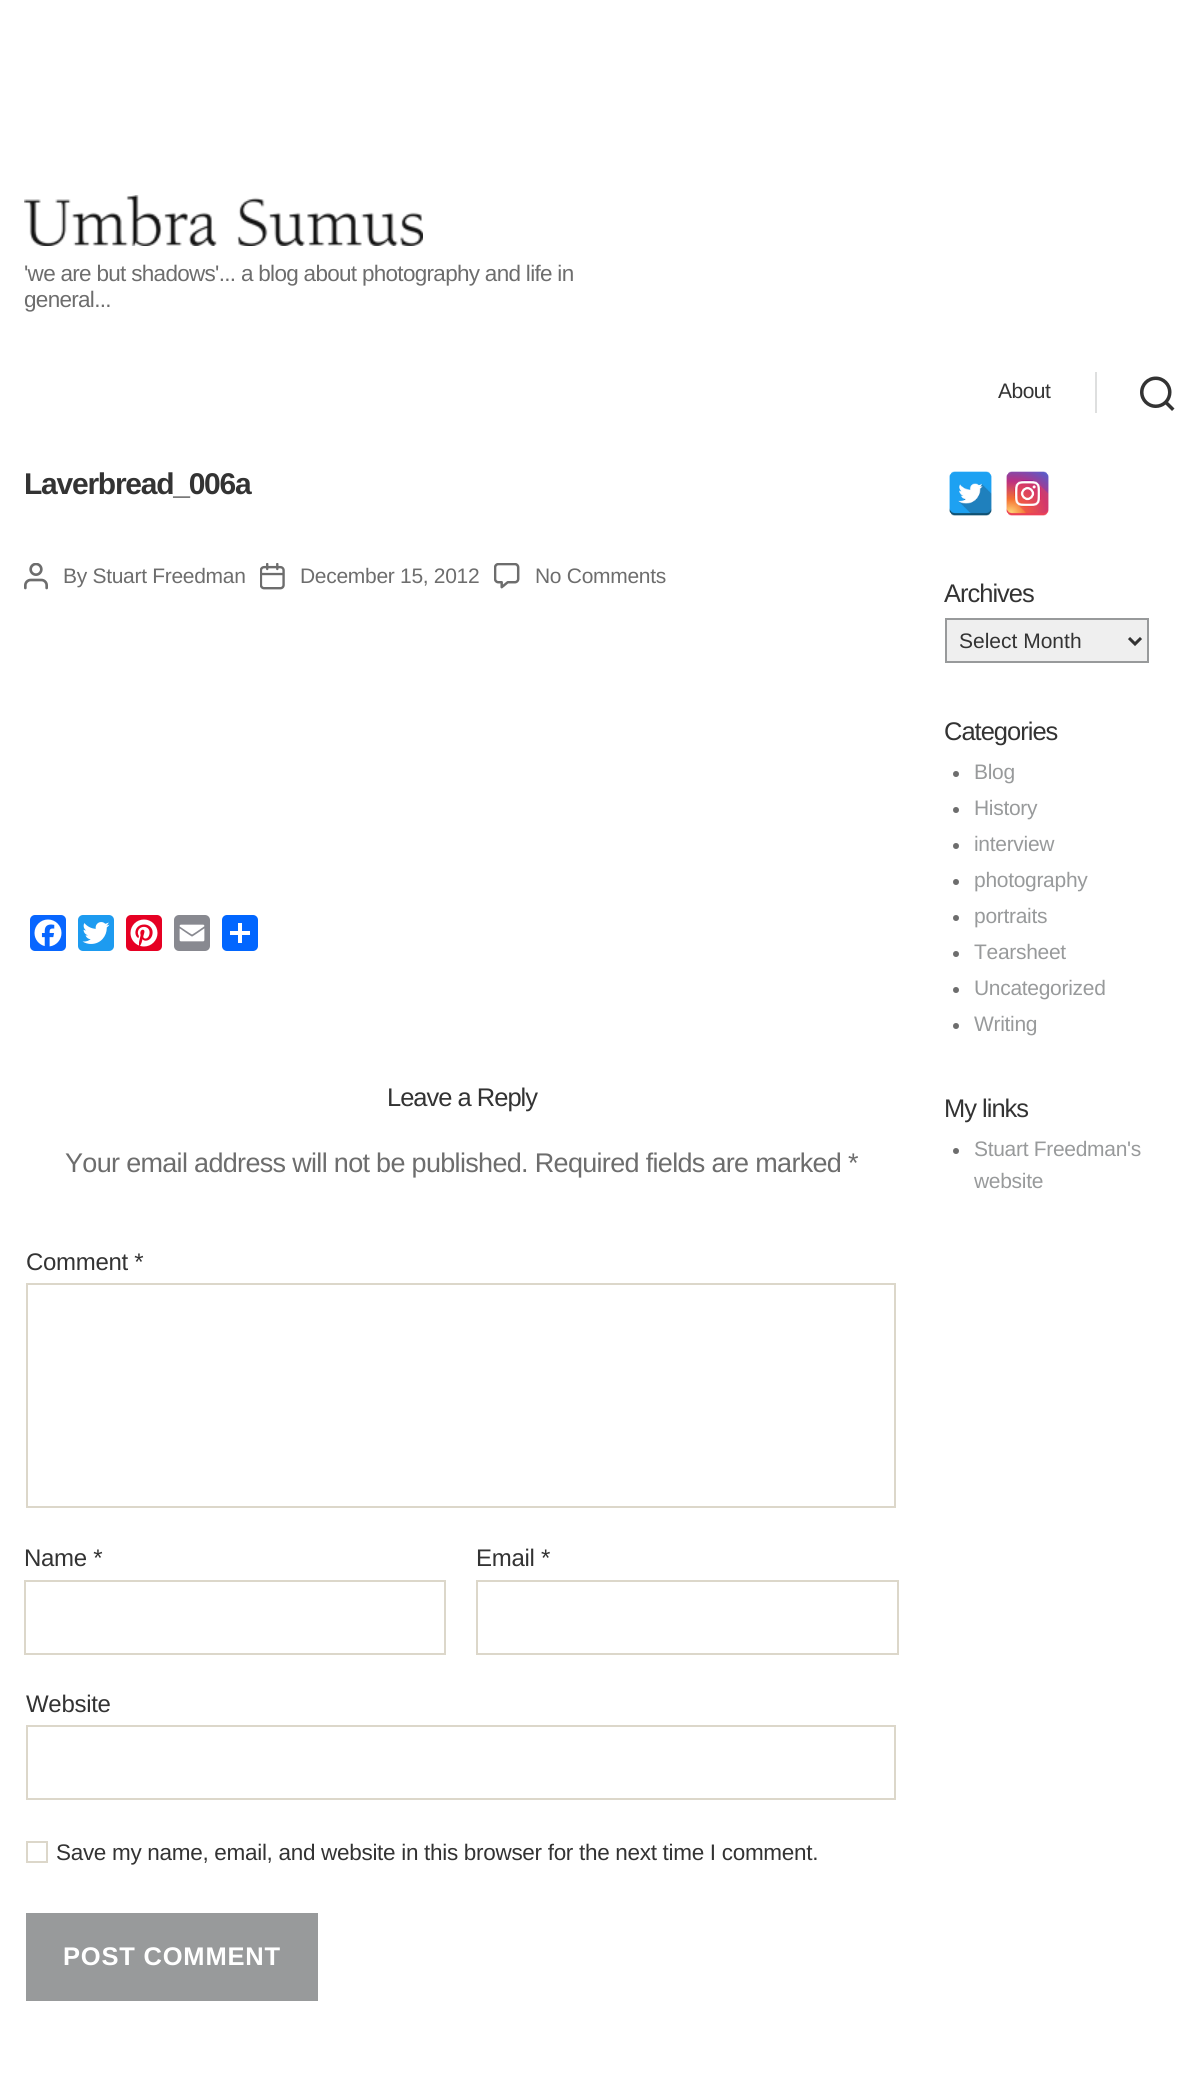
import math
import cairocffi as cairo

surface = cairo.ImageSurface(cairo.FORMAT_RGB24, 1198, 2088)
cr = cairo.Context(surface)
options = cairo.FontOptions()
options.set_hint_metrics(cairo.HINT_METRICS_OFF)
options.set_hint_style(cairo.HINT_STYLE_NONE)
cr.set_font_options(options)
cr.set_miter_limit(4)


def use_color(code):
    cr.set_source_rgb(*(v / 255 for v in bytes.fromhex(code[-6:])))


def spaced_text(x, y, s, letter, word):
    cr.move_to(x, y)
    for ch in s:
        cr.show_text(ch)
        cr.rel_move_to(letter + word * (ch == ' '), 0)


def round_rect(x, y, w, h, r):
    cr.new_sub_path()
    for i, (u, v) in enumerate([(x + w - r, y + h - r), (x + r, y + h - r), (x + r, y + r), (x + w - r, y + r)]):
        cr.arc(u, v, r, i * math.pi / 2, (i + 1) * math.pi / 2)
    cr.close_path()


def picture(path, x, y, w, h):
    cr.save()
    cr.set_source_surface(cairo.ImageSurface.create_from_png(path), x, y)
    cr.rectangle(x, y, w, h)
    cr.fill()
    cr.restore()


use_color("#ffffff")
cr.paint()
picture("img1.png", 24, 195, 399, 51)
cr.select_font_face("Liberation Sans")
cr.set_font_size(22.5)
use_color("#6d6d6d")
spaced_text(24, 281, "'we are but shadows'... a blog about photography and life in", -0.7, 0)
spaced_text(24, 307, "general...", -0.7, 0)
cr.set_font_size(21)
use_color("#333333")
spaced_text(998, 398, "About", -0.5, 0)
use_color("#dedfdf")
cr.rectangle(1095, 372, 2, 41)
cr.fill()
picture("img2.png", 1140, 376, 35, 35)
cr.select_font_face("Liberation Sans", cairo.FONT_SLANT_NORMAL, cairo.FONT_WEIGHT_BOLD)
cr.set_font_size(30)
use_color("#333333")
spaced_text(24, 494, "Laverbread_006a", -1.25, 0)
picture("img3.png", 24, 563, 24, 27)
cr.select_font_face("Liberation Sans")
cr.set_font_size(21)
use_color("#6d6d6d")
spaced_text(63, 583, "By Stuart Freedman", -0.3, 0)
picture("img4.png", 260, 563, 25, 27)
spaced_text(300, 583, "December 15, 2012", -0.3, 0)
picture("img5.png", 494, 563, 26, 26)
spaced_text(535, 583, "No Comments", -0.3, 0)
use_color("#0866ff")
round_rect(30, 915, 36, 36, 5)
cr.fill()
picture("img6.png", 34, 919, 28, 28)
use_color("#1d9bf0")
round_rect(78, 915, 36, 36, 5)
cr.fill()
picture("img7.png", 82, 922, 28, 22)
use_color("#e60023")
round_rect(126, 915, 36, 36, 5)
cr.fill()
picture("img8.png", 130, 919, 28, 28)
use_color("#888990")
round_rect(174, 915, 36, 36, 5)
cr.fill()
picture("img9.png", 179, 924, 26, 18)
use_color("#0166ff")
round_rect(222, 915, 36, 36, 5)
cr.fill()
use_color("#ffffff")
cr.rectangle(238, 923, 4, 20)
cr.fill()
cr.rectangle(230, 931, 20, 4)
cr.fill()
cr.set_font_size(25.5)
use_color("#333333")
spaced_text(387, 1106, "Leave a Reply", -1, 0)
cr.set_font_size(27)
use_color("#6d6d6d")
spaced_text(65, 1172, "Your email address will not be published. Required fields are marked *", -0.68, 0)
cr.set_font_size(24)
use_color("#333333")
spaced_text(26, 1270, "Comment *", -0.3, 0)
cr.rectangle(27, 1284, 868, 223)
use_color("#dcd7ca")
cr.stroke()
use_color("#333333")
spaced_text(24, 1566, "Name *", -0.3, 0)
cr.rectangle(25, 1581, 420, 73)
use_color("#dcd7ca")
cr.stroke()
use_color("#333333")
spaced_text(476, 1566, "Email *", -0.3, 0)
cr.rectangle(477, 1581, 421, 73)
use_color("#dcd7ca")
cr.stroke()
use_color("#333333")
spaced_text(26, 1712, "Website", -0.3, 0)
cr.rectangle(27, 1726, 868, 73)
use_color("#dcd7ca")
cr.stroke()
cr.rectangle(27, 1842, 20, 20)
cr.stroke()
cr.set_font_size(22.5)
use_color("#333333")
spaced_text(56, 1860, "Save my name, email, and website in this browser for the next time I comment.", -0.3, 0)
use_color("#989a9b")
cr.rectangle(26, 1913, 292, 88)
cr.fill()
cr.select_font_face("Liberation Sans", cairo.FONT_SLANT_NORMAL, cairo.FONT_WEIGHT_BOLD)
cr.set_font_size(25.5)
use_color("#ffffff")
spaced_text(63, 1965, "POST COMMENT", 0.8, 0)
picture("img10.png", 949, 471, 43, 45)
picture("img11.png", 1006, 471, 43, 45)
cr.select_font_face("Liberation Sans")
use_color("#333333")
spaced_text(944, 602, "Archives", -1, 0)
use_color("#efefef")
cr.rectangle(946, 619, 202, 43)
cr.fill_preserve()
use_color("#989a9b")
cr.stroke()
cr.new_path()
cr.move_to(1129, 638)
cr.line_to(1135, 644)
cr.line_to(1141, 638)
use_color("#333333")
cr.set_line_width(3)
cr.stroke()
cr.set_font_size(21)
cr.move_to(959, 648)
cr.show_text("Select Month")
cr.set_font_size(25.5)
spaced_text(944, 740, "Categories", -1, 0)
use_color("#6d6d6d")
cr.new_path()
cr.arc(956, 774, 3, 0, 2 * math.pi)
cr.fill()
cr.set_font_size(21)
use_color("#989a9b")
spaced_text(974, 779, "Blog", -0.3, 0)
use_color("#6d6d6d")
cr.new_path()
cr.arc(956, 810, 3, 0, 2 * math.pi)
cr.fill()
use_color("#989a9b")
spaced_text(974, 815, "History", -0.3, 0)
use_color("#6d6d6d")
cr.new_path()
cr.arc(956, 846, 3, 0, 2 * math.pi)
cr.fill()
use_color("#989a9b")
spaced_text(974, 851, "interview", -0.3, 0)
use_color("#6d6d6d")
cr.new_path()
cr.arc(956, 882, 3, 0, 2 * math.pi)
cr.fill()
use_color("#989a9b")
spaced_text(974, 887, "photography", -0.3, 0)
use_color("#6d6d6d")
cr.new_path()
cr.arc(956, 918, 3, 0, 2 * math.pi)
cr.fill()
use_color("#989a9b")
spaced_text(974, 923, "portraits", -0.3, 0)
use_color("#6d6d6d")
cr.new_path()
cr.arc(956, 954, 3, 0, 2 * math.pi)
cr.fill()
use_color("#989a9b")
spaced_text(974, 959, "Tearsheet", -0.3, 0)
use_color("#6d6d6d")
cr.new_path()
cr.arc(956, 990, 3, 0, 2 * math.pi)
cr.fill()
use_color("#989a9b")
spaced_text(974, 995, "Uncategorized", -0.3, 0)
use_color("#6d6d6d")
cr.new_path()
cr.arc(956, 1026, 3, 0, 2 * math.pi)
cr.fill()
use_color("#989a9b")
spaced_text(974, 1031, "Writing", -0.3, 0)
cr.set_font_size(25.5)
use_color("#333333")
spaced_text(944, 1117, "My links", -1, 0)
use_color("#6d6d6d")
cr.new_path()
cr.arc(956, 1151, 3, 0, 2 * math.pi)
cr.fill()
cr.set_font_size(21)
use_color("#989a9b")
spaced_text(974, 1156, "Stuart Freedman's", -0.3, 0)
spaced_text(974, 1188, "website", -0.3, 0)
surface.write_to_png("result.png")
